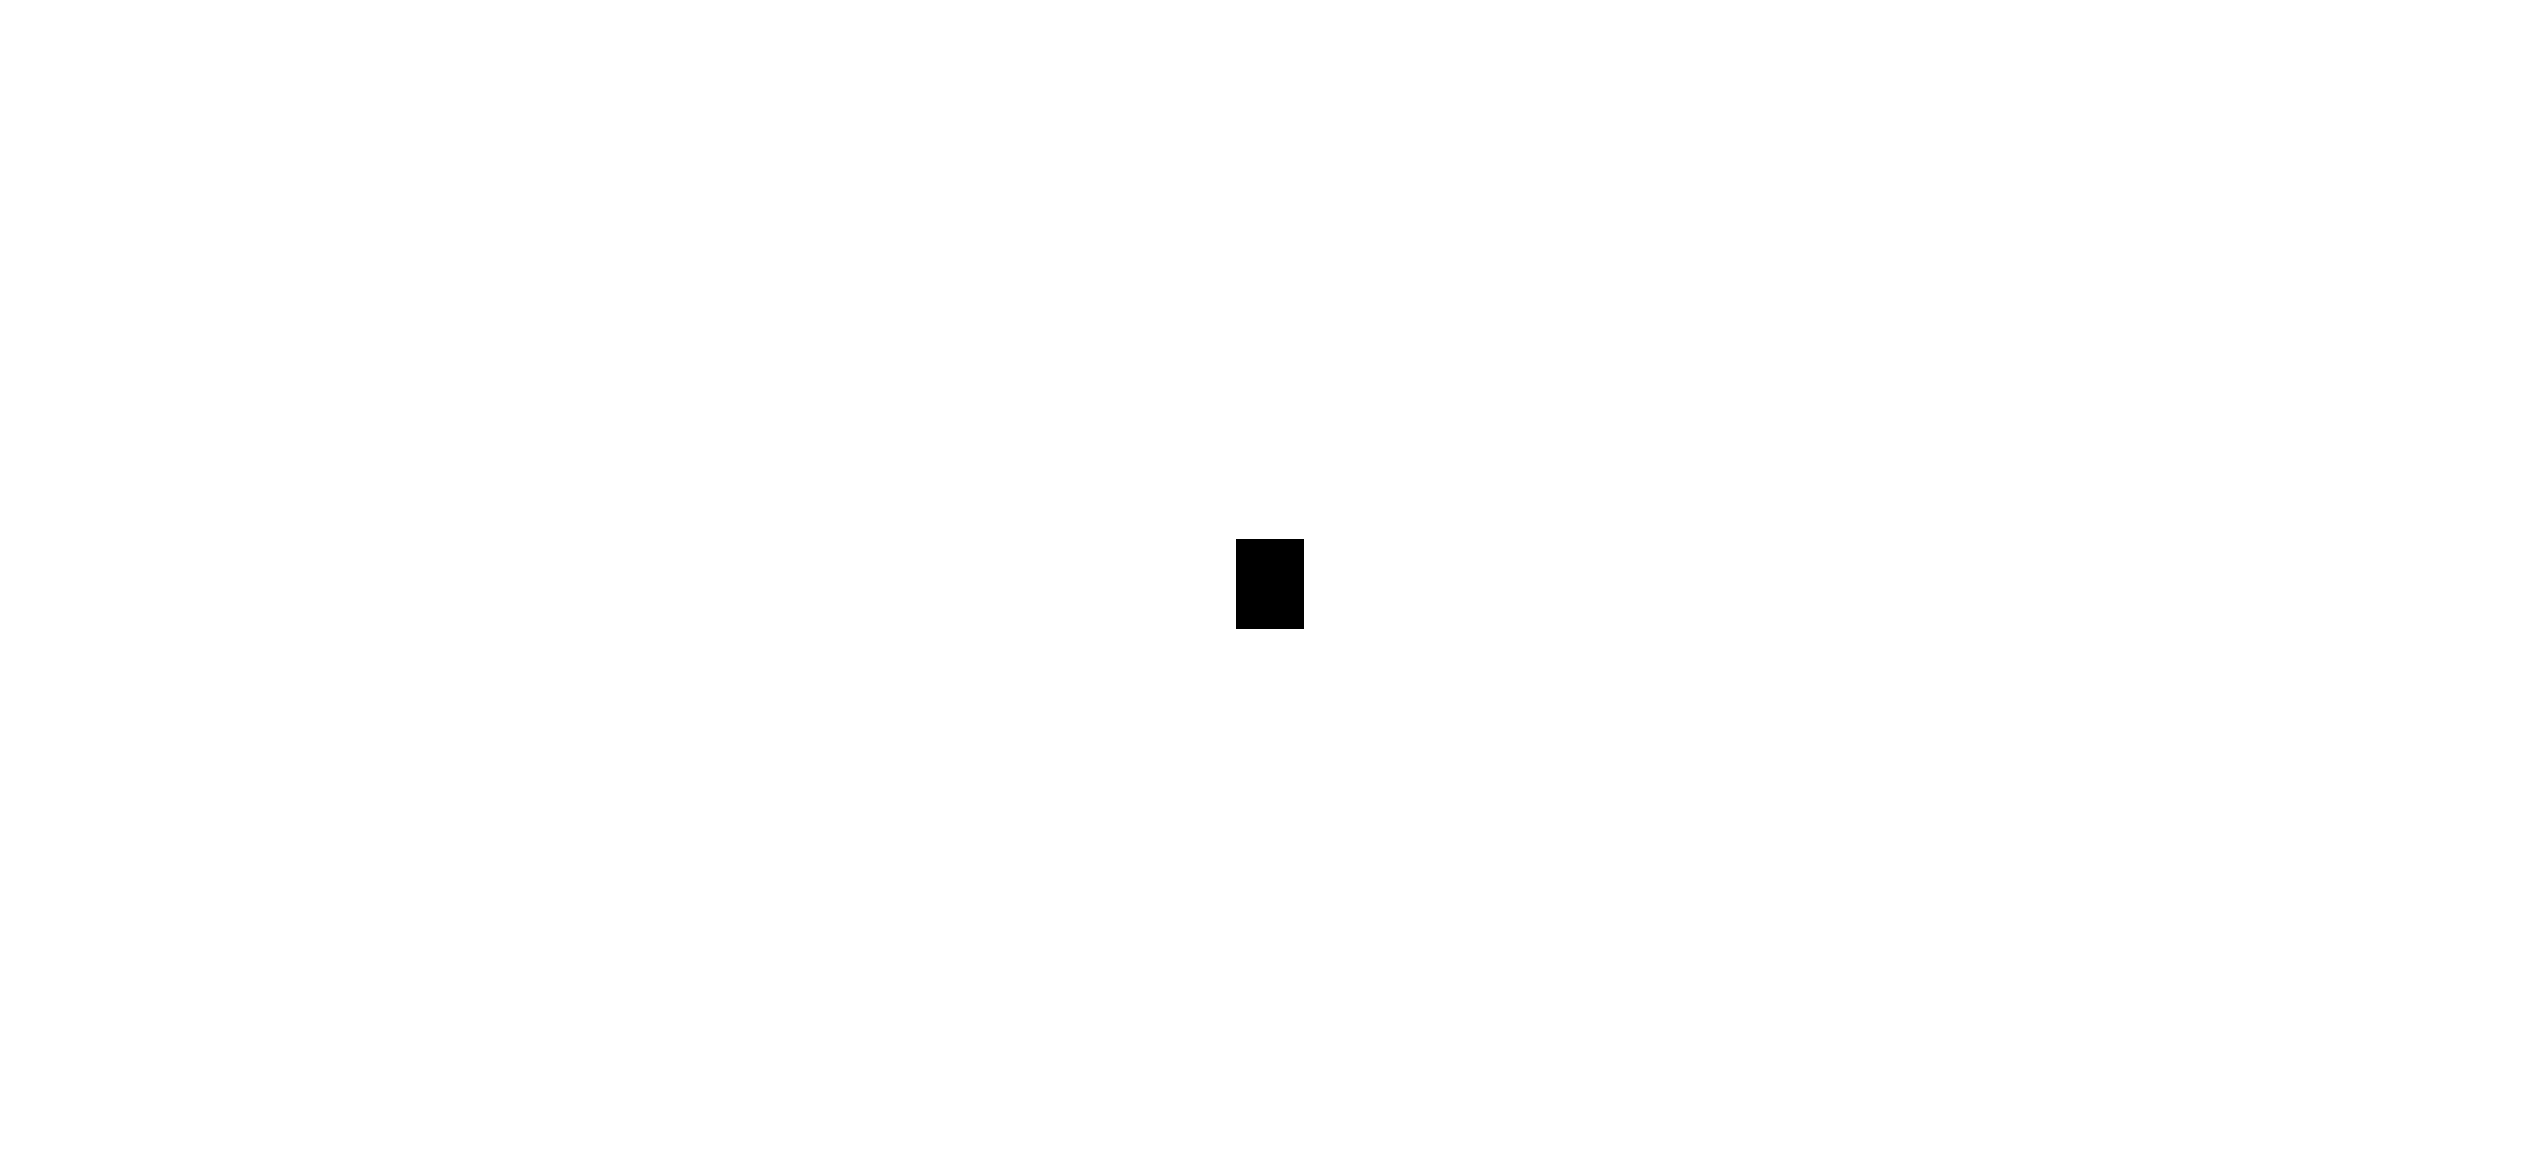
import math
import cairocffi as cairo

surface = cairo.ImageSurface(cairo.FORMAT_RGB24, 2537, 1167)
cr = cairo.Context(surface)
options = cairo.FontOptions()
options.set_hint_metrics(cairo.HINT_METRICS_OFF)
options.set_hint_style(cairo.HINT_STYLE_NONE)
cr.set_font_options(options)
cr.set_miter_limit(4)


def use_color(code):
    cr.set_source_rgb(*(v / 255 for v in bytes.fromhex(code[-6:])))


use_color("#ffffff")
cr.paint()
use_color("#000000")
cr.rectangle(1236, 539, 68, 90)
cr.fill()
surface.write_to_png("result.png")
